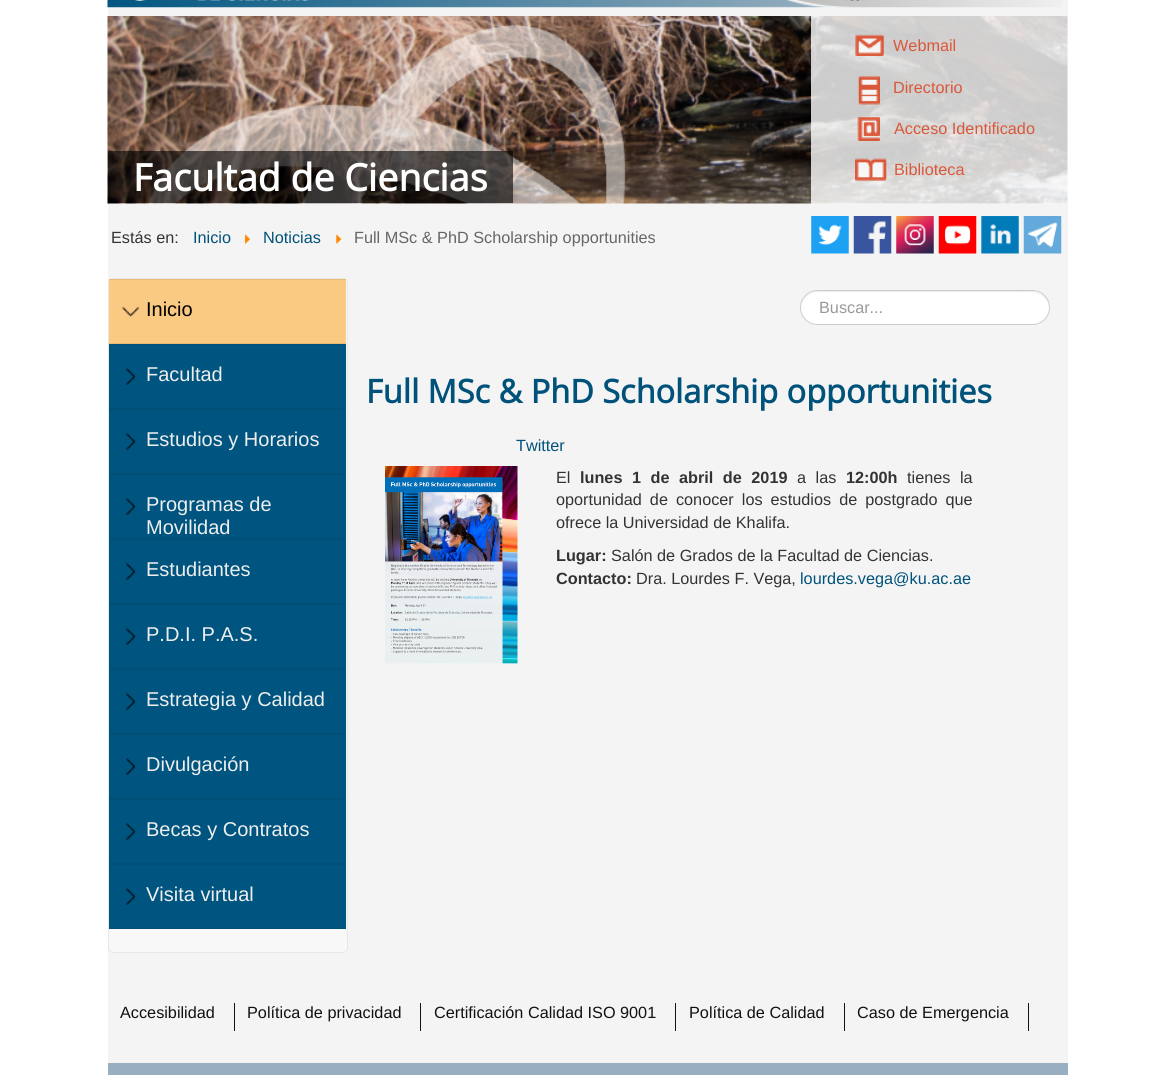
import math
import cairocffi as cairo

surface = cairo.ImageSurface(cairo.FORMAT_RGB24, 1174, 1075)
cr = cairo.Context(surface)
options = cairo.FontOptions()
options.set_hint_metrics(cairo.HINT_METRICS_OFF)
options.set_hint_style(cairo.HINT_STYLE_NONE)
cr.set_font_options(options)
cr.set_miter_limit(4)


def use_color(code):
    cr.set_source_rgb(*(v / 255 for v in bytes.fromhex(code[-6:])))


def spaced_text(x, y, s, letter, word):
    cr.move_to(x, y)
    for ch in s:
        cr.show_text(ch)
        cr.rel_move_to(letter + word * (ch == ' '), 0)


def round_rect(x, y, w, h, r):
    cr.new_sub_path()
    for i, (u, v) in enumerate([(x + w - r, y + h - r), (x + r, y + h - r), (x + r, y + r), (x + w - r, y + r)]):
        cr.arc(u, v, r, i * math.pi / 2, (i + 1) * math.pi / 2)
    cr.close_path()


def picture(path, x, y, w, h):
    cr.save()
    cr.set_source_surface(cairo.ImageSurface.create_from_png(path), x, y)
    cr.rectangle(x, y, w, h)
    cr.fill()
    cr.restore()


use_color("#ffffff")
cr.paint()
use_color("#f4f4f4")
cr.rectangle(108, 0, 960, 1063)
cr.fill()
picture("img1.png", 107, 0, 955, 8)
picture("img2.png", 135, 0, 174, 1)
picture("img3.png", 846, 0, 19, 1)
picture("img4.png", 107, 16, 961, 188)
cr.set_source_rgba(0.004, 0.004, 0.004, 0.6)
cr.rectangle(108, 151, 405, 52)
cr.fill()
cr.select_font_face("Open Sans", cairo.FONT_SLANT_NORMAL, cairo.FONT_WEIGHT_BOLD)
cr.set_font_size(37.5)
use_color("#ffffff")
cr.move_to(133, 191)
cr.show_text("Facultad de Ciencias")
cr.set_source_rgba(1, 1, 1, 0.8)
cr.rectangle(811, 16, 257, 188)
cr.fill()
picture("img5.png", 855, 34, 29, 22)
cr.select_font_face("Liberation Sans")
cr.set_font_size(16.25)
use_color("#da583a")
cr.move_to(893, 51)
cr.show_text("Webmail")
picture("img6.png", 858, 76, 22, 29)
cr.move_to(893, 93)
cr.show_text("Directorio")
picture("img7.png", 857, 117, 23, 24)
cr.move_to(894, 134)
cr.show_text("Acceso Identificado")
picture("img8.png", 855, 158, 32, 23)
cr.move_to(894, 175)
cr.show_text("Biblioteca")
use_color("#333333")
cr.move_to(111, 243)
cr.show_text("Estás en:")
use_color("#00527a")
cr.move_to(193, 243)
cr.show_text("Inicio")
picture("img9.png", 244, 234, 7, 10)
cr.move_to(263, 243)
cr.show_text("Noticias")
picture("img10.png", 336, 234, 6, 10)
use_color("#666666")
cr.move_to(354, 243)
cr.show_text("Full MSc & PhD Scholarship opportunities")
picture("img11.png", 811, 216, 38, 38)
picture("img12.png", 853, 216, 39, 38)
picture("img13.png", 896, 216, 38, 38)
picture("img14.png", 938, 216, 39, 38)
picture("img15.png", 981, 216, 38, 38)
picture("img16.png", 1023, 216, 39, 38)
use_color("#f8f8f8")
round_rect(108.5, 278.5, 239, 674, 4.5)
cr.fill_preserve()
use_color("#e7e7e7")
cr.set_line_width(1)
cr.stroke()
use_color("#fac982")
cr.rectangle(109, 280, 237, 63)
cr.fill()
picture("img17.png", 121, 306, 19, 11)
use_color("#e7ba78")
cr.rectangle(109, 279, 237, 1)
cr.fill()
cr.rectangle(109, 343, 237, 1)
cr.fill()
cr.set_font_size(20)
use_color("#000000")
cr.move_to(146, 316)
cr.show_text("Inicio")
use_color("#005580")
cr.rectangle(109, 345, 237, 63)
cr.fill()
picture("img18.png", 126, 367, 10, 19)
use_color("#004f76")
cr.rectangle(109, 344, 237, 1)
cr.fill()
cr.rectangle(109, 408, 237, 2)
cr.fill()
use_color("#eeeeee")
cr.move_to(146, 381)
cr.show_text("Facultad")
use_color("#005580")
cr.rectangle(109, 410, 237, 63)
cr.fill()
picture("img18.png", 126, 432, 10, 19)
use_color("#004f76")
cr.rectangle(109, 473, 237, 2)
cr.fill()
use_color("#eeeeee")
cr.move_to(146, 446)
cr.show_text("Estudios y Horarios")
use_color("#005580")
cr.rectangle(109, 475, 237, 63)
cr.fill()
picture("img19.png", 126, 497, 10, 19)
use_color("#004f76")
cr.rectangle(109, 538, 237, 2)
cr.fill()
use_color("#eeeeee")
cr.move_to(146, 511)
cr.show_text("Programas de")
cr.move_to(146, 534)
cr.show_text("Movilidad")
use_color("#005580")
cr.rectangle(109, 540, 237, 63)
cr.fill()
picture("img18.png", 126, 562, 10, 19)
use_color("#004f76")
cr.rectangle(109, 603, 237, 2)
cr.fill()
use_color("#eeeeee")
cr.move_to(146, 576)
cr.show_text("Estudiantes")
use_color("#005580")
cr.rectangle(109, 605, 237, 63)
cr.fill()
picture("img18.png", 126, 627, 10, 19)
use_color("#004f76")
cr.rectangle(109, 668, 237, 2)
cr.fill()
use_color("#eeeeee")
cr.move_to(146, 641)
cr.show_text("P.D.I. P.A.S.")
use_color("#005580")
cr.rectangle(109, 670, 237, 63)
cr.fill()
picture("img20.png", 126, 692, 10, 19)
use_color("#004f76")
cr.rectangle(109, 733, 237, 2)
cr.fill()
use_color("#eeeeee")
cr.move_to(146, 706)
cr.show_text("Estrategia y Calidad")
use_color("#005580")
cr.rectangle(109, 735, 237, 63)
cr.fill()
picture("img18.png", 126, 757, 10, 19)
use_color("#004f76")
cr.rectangle(109, 798, 237, 2)
cr.fill()
use_color("#eeeeee")
cr.move_to(146, 771)
cr.show_text("Divulgación")
use_color("#005580")
cr.rectangle(109, 800, 237, 63)
cr.fill()
picture("img18.png", 126, 822, 10, 19)
use_color("#004f76")
cr.rectangle(109, 863, 237, 2)
cr.fill()
use_color("#eeeeee")
cr.move_to(146, 836)
cr.show_text("Becas y Contratos")
use_color("#005580")
cr.rectangle(109, 865, 237, 63)
cr.fill()
picture("img18.png", 126, 887, 10, 19)
use_color("#004f76")
cr.rectangle(109, 928, 237, 1)
cr.fill()
use_color("#eeeeee")
cr.move_to(146, 901)
cr.show_text("Visita virtual")
cr.select_font_face("Open Sans", cairo.FONT_SLANT_NORMAL, cairo.FONT_WEIGHT_BOLD)
cr.set_font_size(32.5)
use_color("#00527a")
cr.move_to(366, 403)
cr.show_text("Full MSc & PhD Scholarship opportunities")
cr.select_font_face("Liberation Sans")
cr.set_font_size(16.25)
cr.move_to(516, 451)
cr.show_text("Twitter")
picture("img21.png", 385, 466, 133, 198)
use_color("#333333")
cr.move_to(556, 483)
cr.show_text("El")
cr.select_font_face("Liberation Sans", cairo.FONT_SLANT_NORMAL, cairo.FONT_WEIGHT_BOLD)
spaced_text(580, 483, "lunes 1 de abril de 2019", 0, 5)
cr.select_font_face("Liberation Sans")
spaced_text(797, 483, "a las", 0, 5)
cr.select_font_face("Liberation Sans", cairo.FONT_SLANT_NORMAL, cairo.FONT_WEIGHT_BOLD)
cr.move_to(846, 483)
cr.show_text("12:00h")
cr.select_font_face("Liberation Sans")
spaced_text(907, 483, "tienes la", 0, 5)
spaced_text(556, 505, "oportunidad de conocer los estudios de postgrado que", 0, 3.5)
cr.move_to(556, 528)
cr.show_text("ofrece la Universidad de Khalifa.")
cr.select_font_face("Liberation Sans", cairo.FONT_SLANT_NORMAL, cairo.FONT_WEIGHT_BOLD)
cr.move_to(556, 561)
cr.show_text("Lugar:")
cr.select_font_face("Liberation Sans")
cr.move_to(611, 561)
cr.show_text("Salón de Grados de la Facultad de Ciencias.")
cr.select_font_face("Liberation Sans", cairo.FONT_SLANT_NORMAL, cairo.FONT_WEIGHT_BOLD)
cr.move_to(556, 584)
cr.show_text("Contacto:")
cr.select_font_face("Liberation Sans")
cr.move_to(636, 584)
cr.show_text("Dra. Lourdes F. Vega,")
use_color("#00527a")
cr.move_to(800, 584)
cr.show_text("lourdes.vega@ku.ac.ae")
use_color("#ffffff")
round_rect(800, 290, 250, 35, 17.5)
cr.fill()
use_color("#ececec")
cr.new_path()
cr.move_to(818, 292)
cr.line_to(1032, 292)
cr.curve_to(1041, 292, 1049, 300, 1049, 308)
cr.curve_to(1050, 283, 1007, 291, 997, 291)
cr.line_to(853, 291)
cr.curve_to(843, 291, 800, 283, 801, 308)
cr.curve_to(801, 300, 809, 292, 818, 292)
cr.close_path()
cr.fill()
round_rect(800.5, 290.5, 249, 34, 17)
use_color("#cccccc")
cr.stroke()
use_color("#999999")
cr.move_to(819, 313)
cr.show_text("Buscar...")
use_color("#111111")
cr.move_to(120, 1018)
cr.show_text("Accesibilidad")
cr.rectangle(234, 1003, 1, 28)
cr.fill()
cr.move_to(247, 1018)
cr.show_text("Política de privacidad")
cr.rectangle(420, 1003, 1, 28)
cr.fill()
cr.move_to(434, 1018)
cr.show_text("Certificación Calidad ISO 9001")
cr.rectangle(675, 1003, 1, 28)
cr.fill()
cr.move_to(689, 1018)
cr.show_text("Política de Calidad")
cr.rectangle(844, 1003, 1, 28)
cr.fill()
cr.move_to(857, 1018)
cr.show_text("Caso de Emergencia")
cr.rectangle(1028, 1003, 1, 28)
cr.fill()
use_color("#98afc1")
cr.rectangle(108, 1063, 960, 12)
cr.fill()
surface.write_to_png("result.png")
